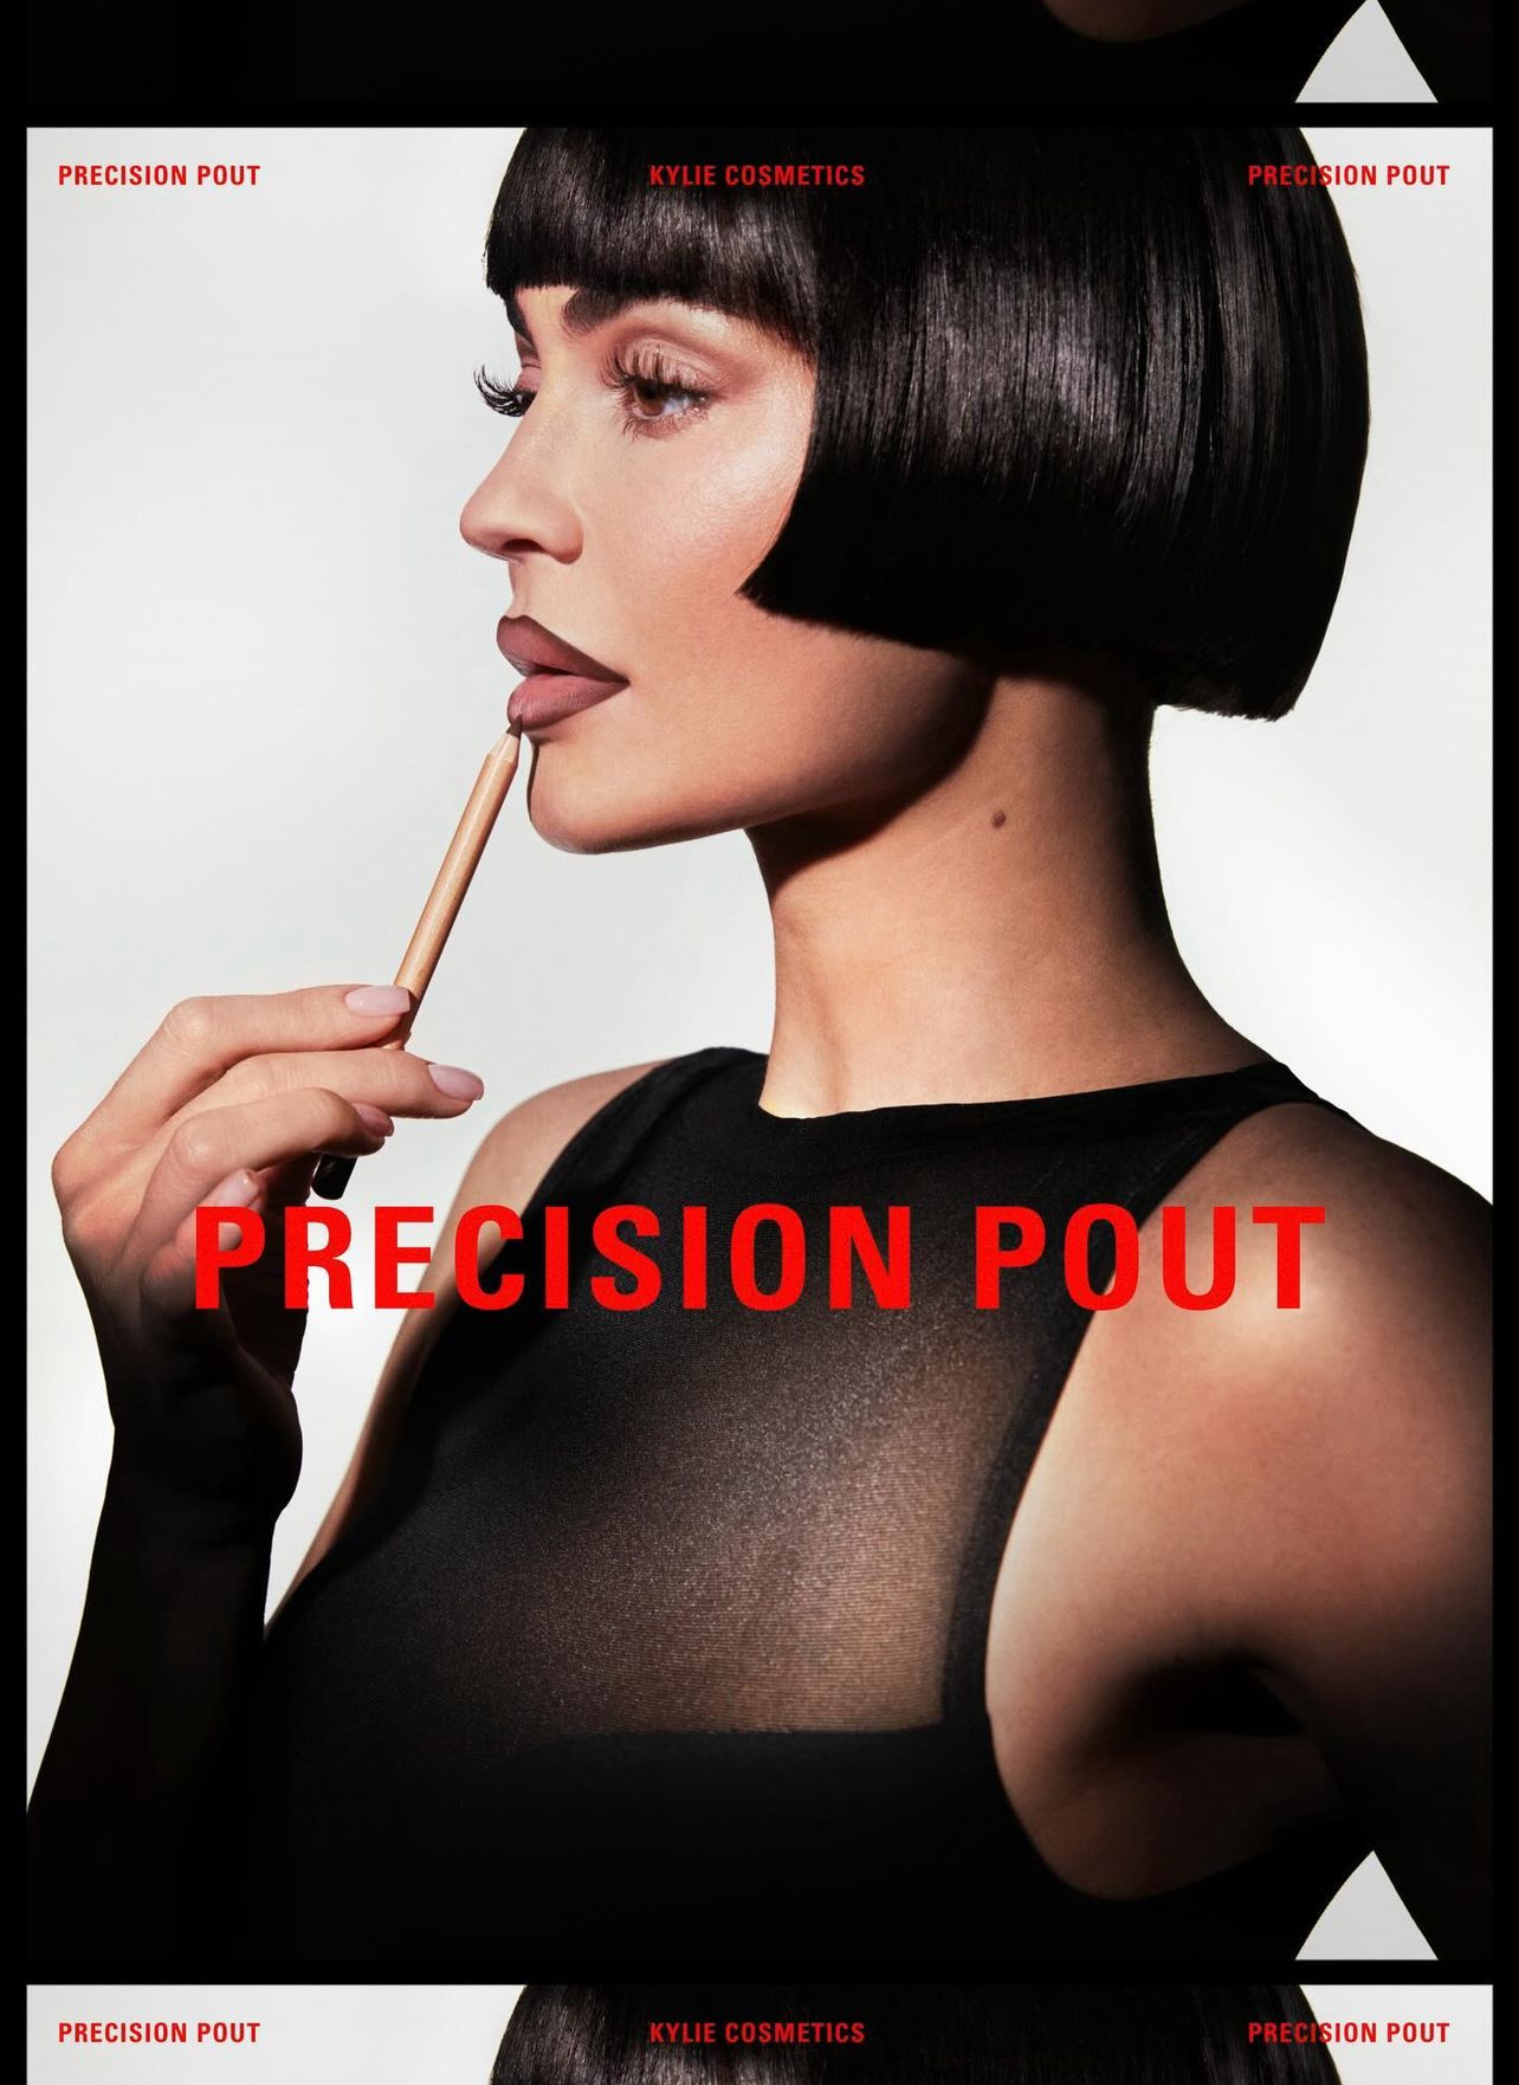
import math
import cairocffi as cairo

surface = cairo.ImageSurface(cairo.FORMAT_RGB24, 1519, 2085)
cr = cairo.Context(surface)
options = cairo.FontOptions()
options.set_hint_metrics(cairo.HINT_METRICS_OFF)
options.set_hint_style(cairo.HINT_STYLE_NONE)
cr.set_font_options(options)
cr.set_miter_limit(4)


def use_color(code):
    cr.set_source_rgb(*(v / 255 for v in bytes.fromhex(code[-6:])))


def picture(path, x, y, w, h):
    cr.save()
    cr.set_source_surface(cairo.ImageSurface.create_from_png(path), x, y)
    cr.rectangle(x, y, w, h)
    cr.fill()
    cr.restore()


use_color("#ffffff")
cr.paint()
picture("img1.png", 0, 0, 1519, 2085)
surface.write_to_png("result.png")
